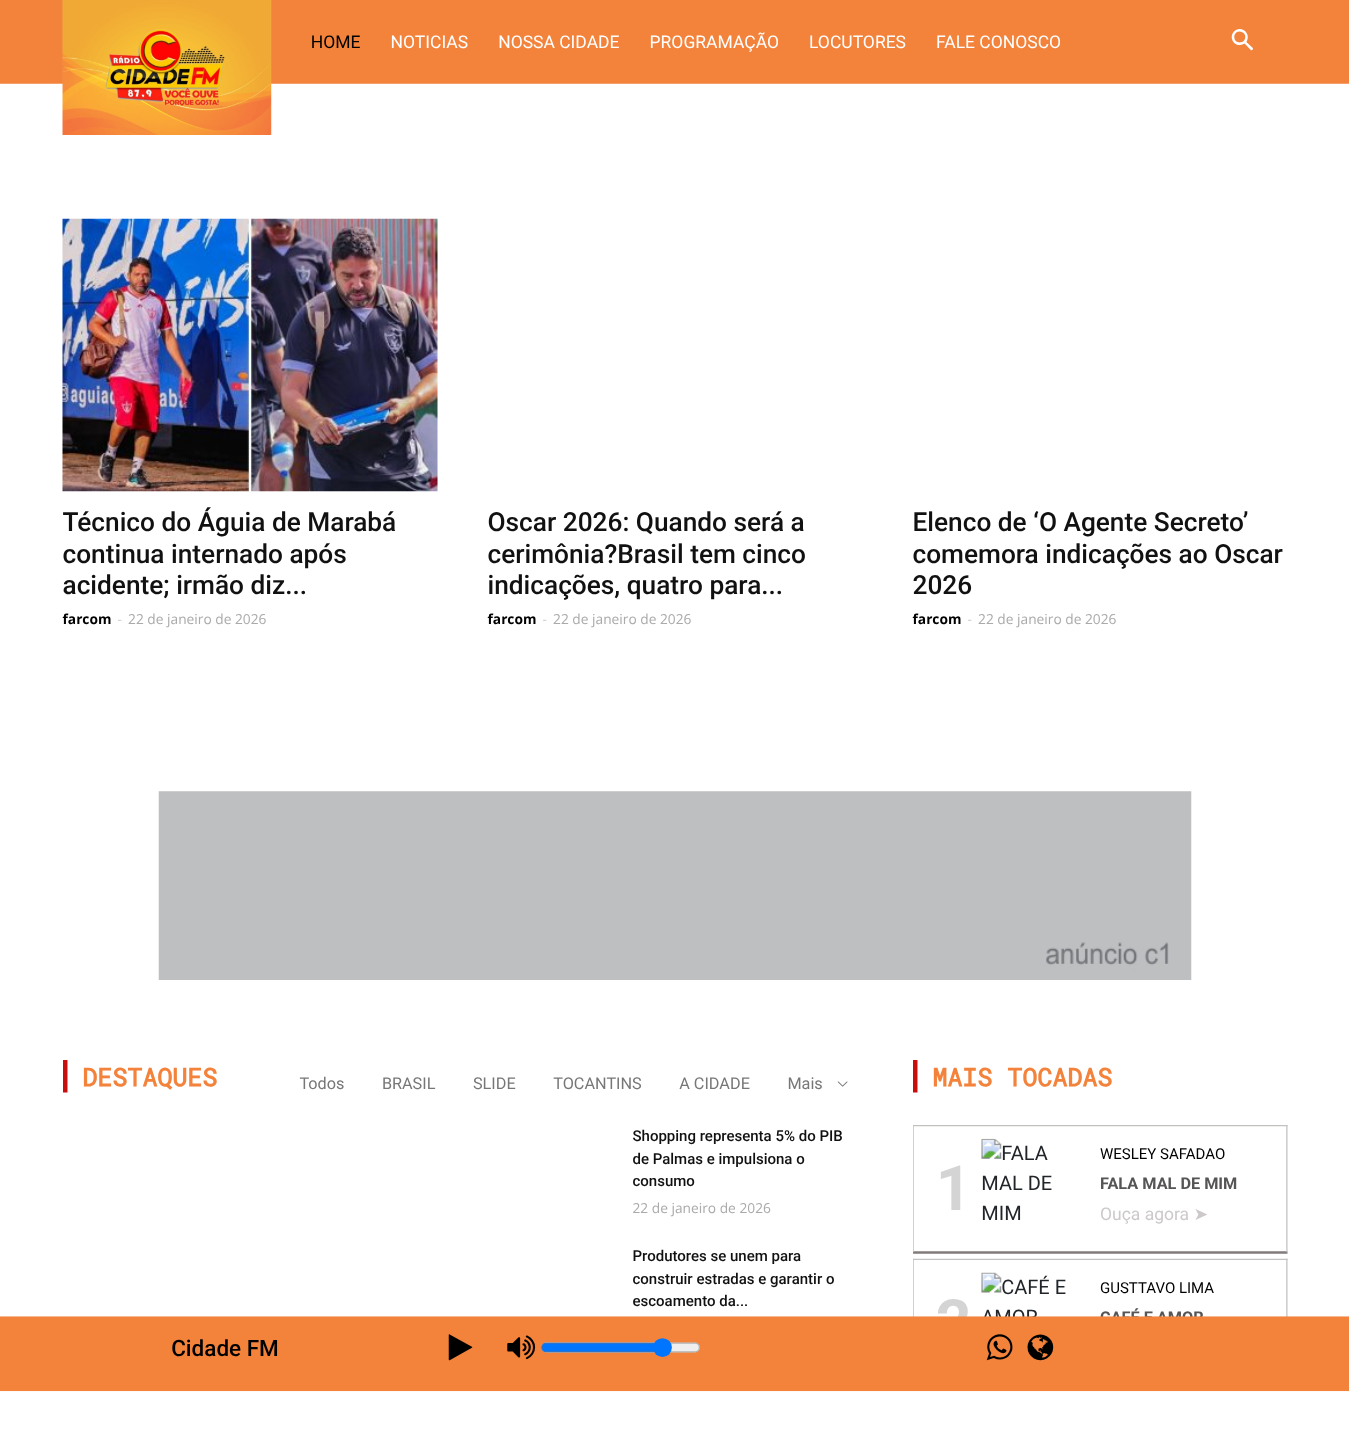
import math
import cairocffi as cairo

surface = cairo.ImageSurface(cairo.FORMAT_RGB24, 1349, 1431)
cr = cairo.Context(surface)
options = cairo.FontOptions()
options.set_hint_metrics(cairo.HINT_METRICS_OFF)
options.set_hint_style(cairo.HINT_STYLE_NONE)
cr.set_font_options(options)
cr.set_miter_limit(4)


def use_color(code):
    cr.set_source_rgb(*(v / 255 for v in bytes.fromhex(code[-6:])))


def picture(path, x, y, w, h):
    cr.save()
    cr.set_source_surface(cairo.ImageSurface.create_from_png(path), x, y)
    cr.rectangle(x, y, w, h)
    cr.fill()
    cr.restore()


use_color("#ffffff")
cr.paint()
picture("img1.png", 0, 0, 1349, 1317)
picture("img2.png", 0, 1316, 1349, 76)
surface.write_to_png("result.png")
